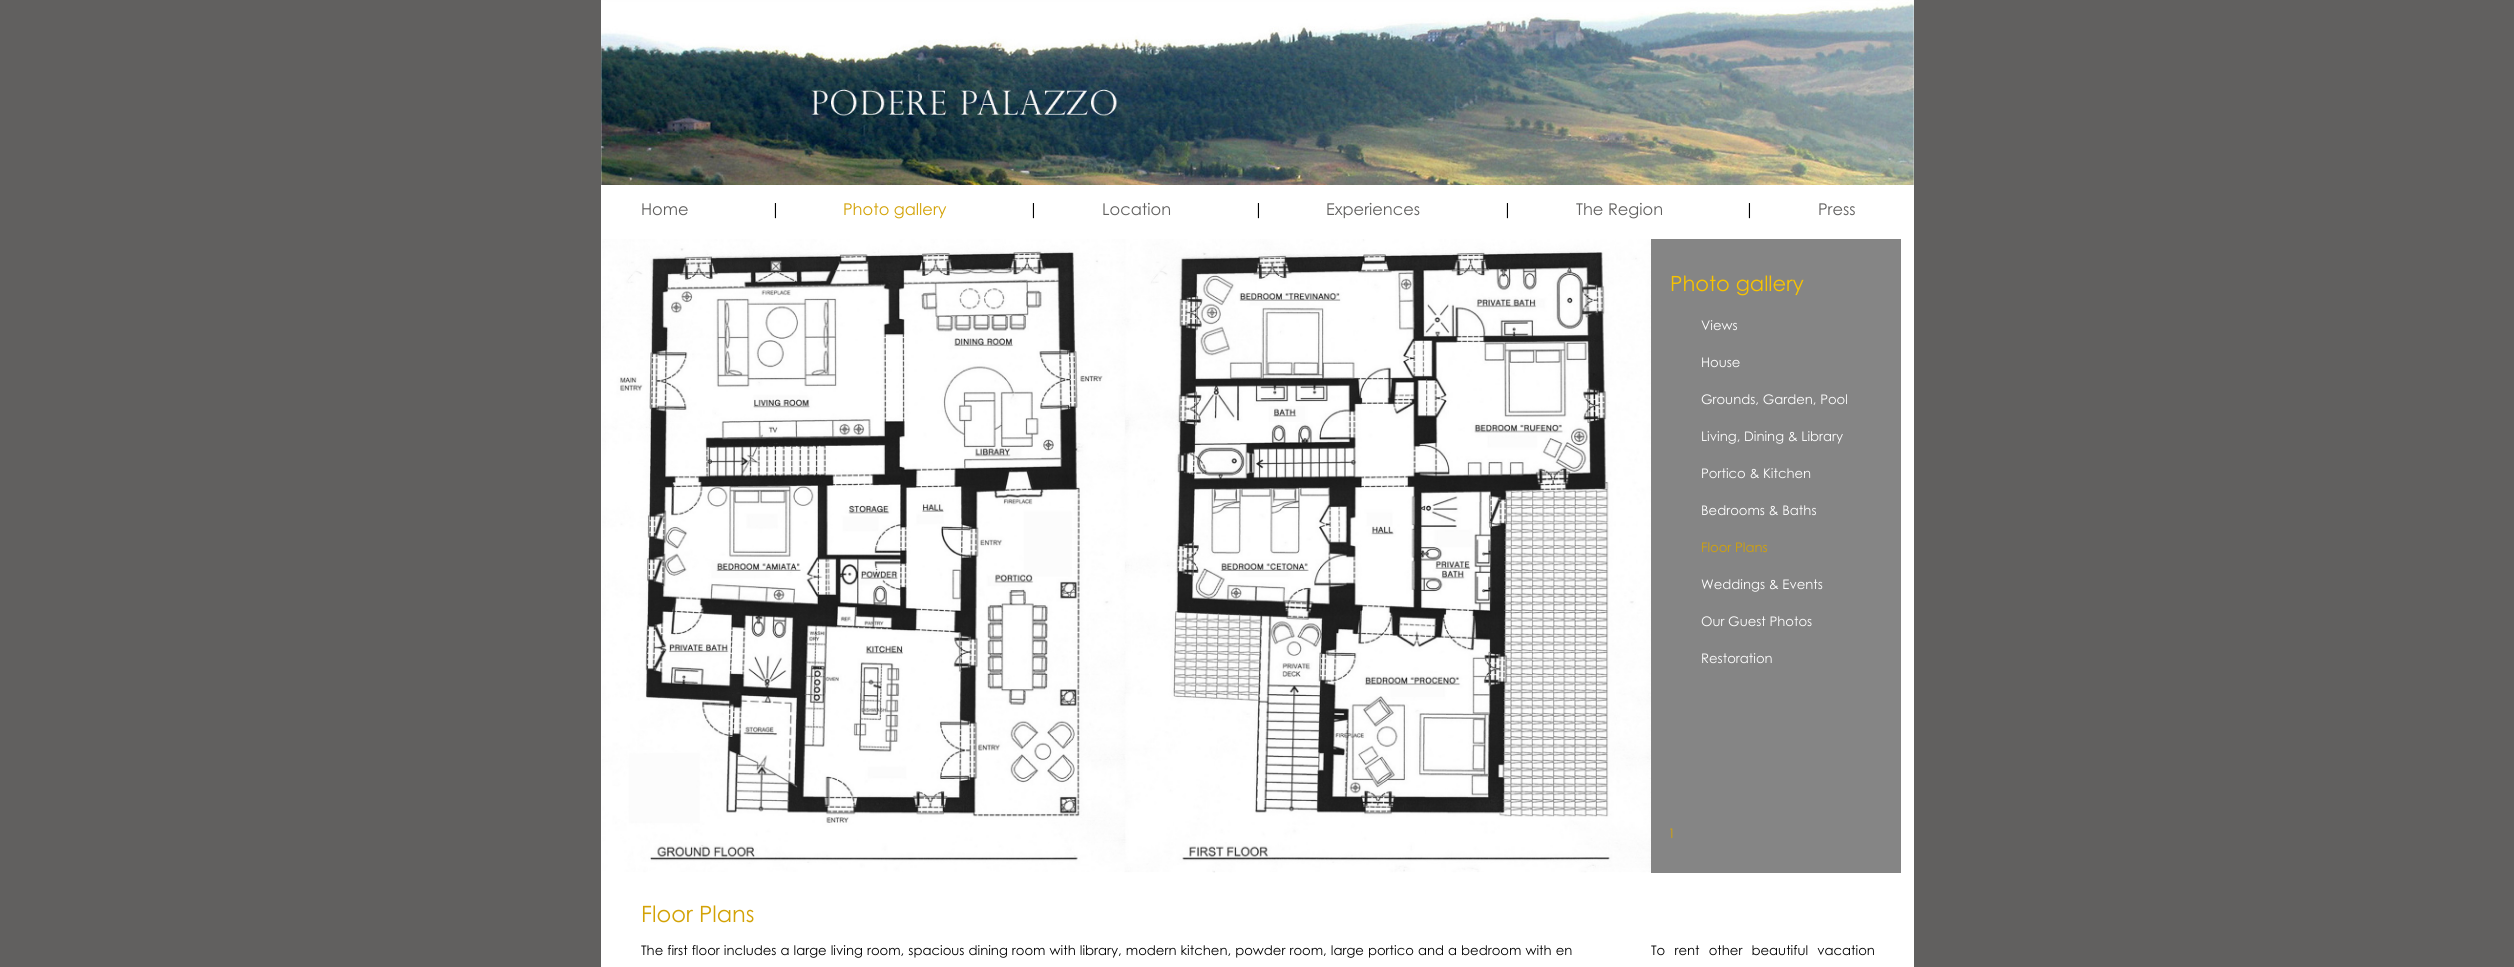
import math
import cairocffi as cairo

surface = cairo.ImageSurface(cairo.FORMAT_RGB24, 2514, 967)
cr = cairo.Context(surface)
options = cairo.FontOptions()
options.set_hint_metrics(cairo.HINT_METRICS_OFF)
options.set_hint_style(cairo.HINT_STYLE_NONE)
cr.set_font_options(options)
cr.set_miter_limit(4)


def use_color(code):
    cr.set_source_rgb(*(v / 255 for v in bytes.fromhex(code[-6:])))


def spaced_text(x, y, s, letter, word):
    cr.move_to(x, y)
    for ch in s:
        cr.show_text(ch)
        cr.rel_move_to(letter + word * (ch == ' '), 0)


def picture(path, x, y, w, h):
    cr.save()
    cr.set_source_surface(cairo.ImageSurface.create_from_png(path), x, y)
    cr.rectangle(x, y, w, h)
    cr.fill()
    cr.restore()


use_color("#61605f")
cr.paint()
use_color("#ffffff")
cr.rectangle(601, 0, 1313, 967)
cr.fill()
picture("img1.png", 601, 0, 1313, 185)
cr.select_font_face("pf")
cr.set_font_size(16.25)
use_color("#61605f")
cr.move_to(641, 215)
cr.show_text("Home")
use_color("#010101")
cr.move_to(770, 215)
cr.show_text("|")
use_color("#d3a206")
cr.move_to(843, 215)
cr.show_text("Photo gallery")
use_color("#010101")
cr.move_to(1028, 215)
cr.show_text("|")
use_color("#61605f")
cr.move_to(1102, 215)
cr.show_text("Location")
use_color("#010101")
cr.move_to(1253, 215)
cr.show_text("|")
use_color("#61605f")
cr.move_to(1326, 215)
cr.show_text("Experiences")
use_color("#010101")
cr.move_to(1502, 215)
cr.show_text("|")
use_color("#61605f")
cr.move_to(1576, 215)
cr.show_text("The Region")
use_color("#010101")
cr.move_to(1744, 215)
cr.show_text("|")
use_color("#61605f")
cr.move_to(1818, 215)
cr.show_text("Press")
picture("img2.png", 602, 239, 1049, 634)
use_color("#858585")
cr.rectangle(1651, 239, 250, 634)
cr.fill()
cr.set_font_size(21)
use_color("#f8c300")
cr.move_to(1670, 291)
cr.show_text("Photo gallery")
cr.set_font_size(13.2)
use_color("#ffffff")
cr.move_to(1701, 330)
cr.show_text("Views")
cr.move_to(1701, 367)
cr.show_text("House")
cr.move_to(1701, 404)
cr.show_text("Grounds, Garden, Pool")
cr.move_to(1701, 441)
cr.show_text("Living, Dining & Library")
cr.move_to(1701, 478)
cr.show_text("Portico & Kitchen")
cr.move_to(1701, 515)
cr.show_text("Bedrooms & Baths")
use_color("#d3a206")
cr.move_to(1701, 552)
cr.show_text("Floor Plans")
use_color("#ffffff")
cr.move_to(1701, 589)
cr.show_text("Weddings & Events")
cr.move_to(1701, 626)
cr.show_text("Our Guest Photos")
cr.move_to(1701, 663)
cr.show_text("Restoration")
use_color("#d3a206")
cr.move_to(1668, 838)
cr.show_text("1")
cr.set_font_size(22.5)
cr.move_to(641, 922)
cr.show_text("Floor Plans")
cr.set_font_size(13.2)
use_color("#010101")
spaced_text(641, 955, "The first floor includes a large living room, spacious dining room with library, modern kitchen, powder room, large portico and a bedroom with en", 0, 0.4)
spaced_text(1651, 955, "To rent other beautiful vacation", 0, 5.5)
surface.write_to_png("result.png")
